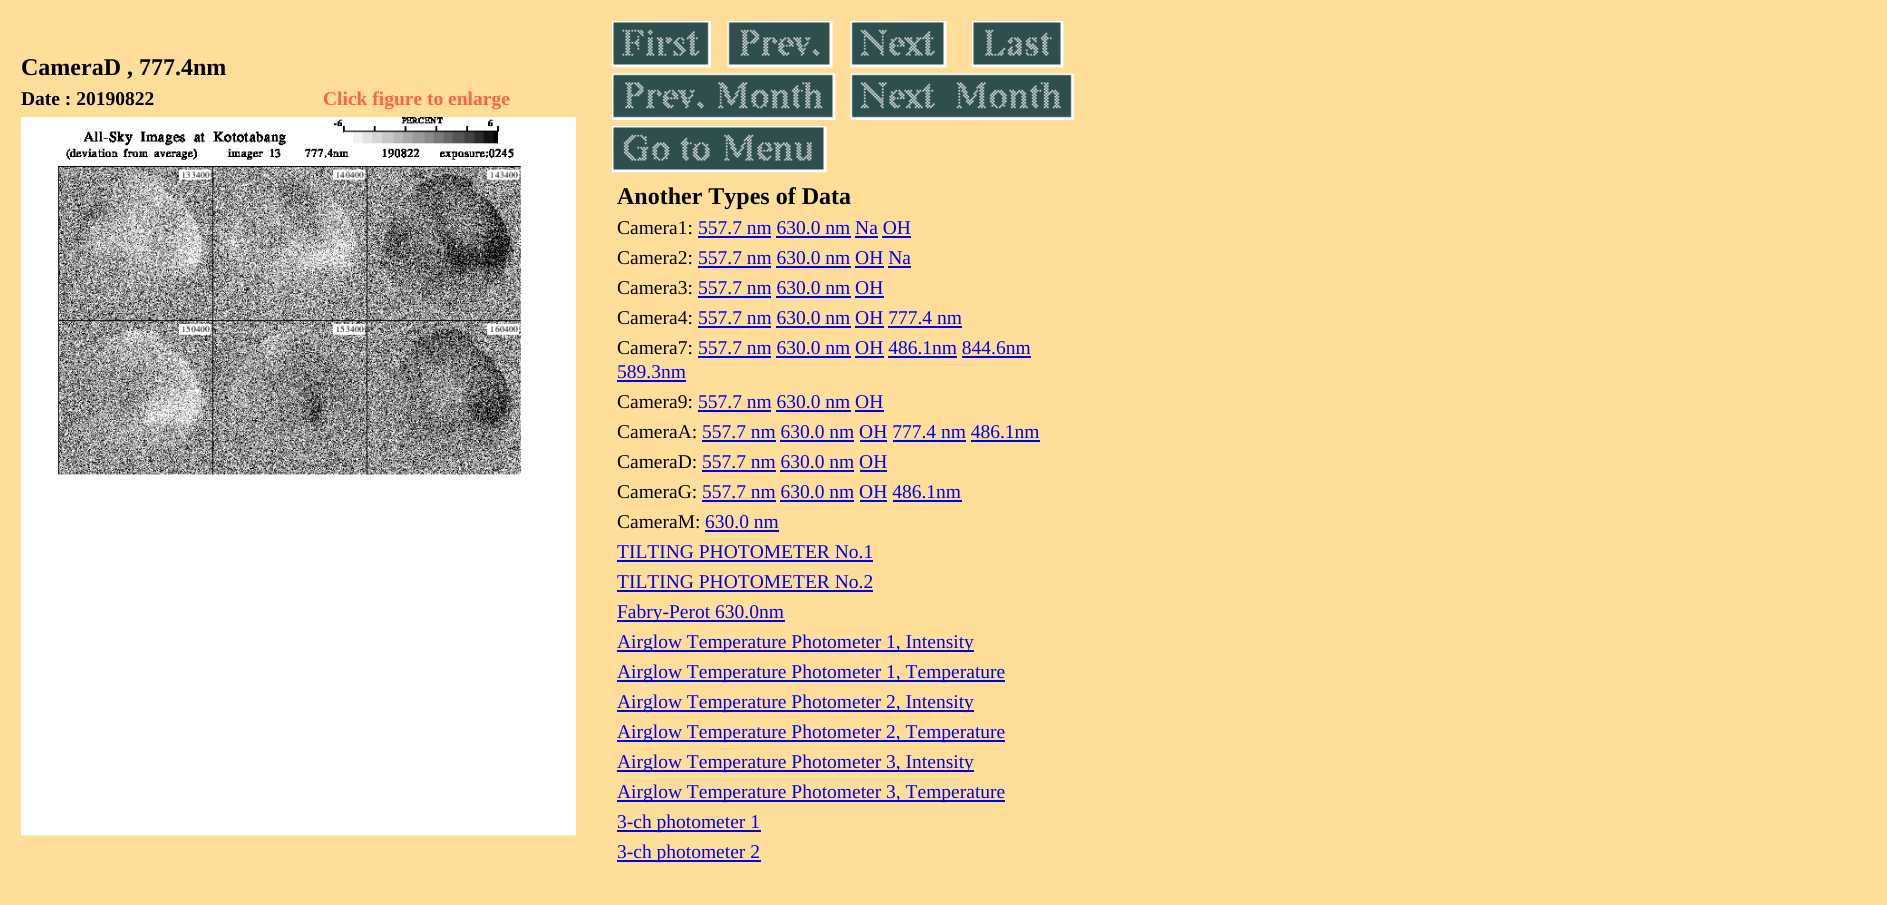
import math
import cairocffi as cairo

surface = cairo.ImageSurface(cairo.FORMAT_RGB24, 1887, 905)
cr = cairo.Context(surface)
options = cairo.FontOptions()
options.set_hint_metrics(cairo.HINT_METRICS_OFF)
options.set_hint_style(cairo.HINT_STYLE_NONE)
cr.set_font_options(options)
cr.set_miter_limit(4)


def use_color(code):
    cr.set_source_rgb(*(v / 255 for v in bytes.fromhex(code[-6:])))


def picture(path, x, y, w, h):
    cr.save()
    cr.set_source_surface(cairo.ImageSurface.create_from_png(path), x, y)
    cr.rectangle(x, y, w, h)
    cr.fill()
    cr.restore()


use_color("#ffde99")
cr.paint()
cr.select_font_face("Liberation Serif", cairo.FONT_SLANT_NORMAL, cairo.FONT_WEIGHT_BOLD)
cr.set_font_size(24)
use_color("#000000")
cr.move_to(21, 75)
cr.show_text("CameraD , 777.4nm")
cr.set_font_size(19.5)
cr.move_to(21, 105)
cr.show_text("Date : 20190822")
use_color("#ff6347")
cr.move_to(323, 105)
cr.show_text("Click figure to enlarge")
picture("img1.png", 21, 117, 555, 719)
picture("img2.png", 612, 21, 99, 47)
picture("img3.png", 727, 21, 106, 47)
picture("img4.png", 850, 21, 97, 47)
picture("img5.png", 972, 21, 92, 47)
picture("img6.png", 612, 73, 224, 47)
picture("img7.png", 850, 73, 224, 47)
picture("img8.png", 612, 126, 215, 47)
cr.set_font_size(24)
use_color("#000000")
cr.move_to(617, 204)
cr.show_text("Another Types of Data")
cr.select_font_face("Liberation Serif")
cr.set_font_size(19.5)
cr.move_to(617, 234)
cr.show_text("Camera1:")
use_color("#0000ee")
cr.move_to(698, 234)
cr.show_text("557.7 nm 630.0 nm Na OH")
cr.rectangle(698, 236, 73, 2)
cr.fill()
cr.rectangle(776, 236, 75, 2)
cr.fill()
cr.rectangle(855, 236, 23, 2)
cr.fill()
cr.rectangle(882, 236, 29, 2)
cr.fill()
use_color("#000000")
cr.move_to(617, 264)
cr.show_text("Camera2:")
use_color("#0000ee")
cr.move_to(698, 264)
cr.show_text("557.7 nm 630.0 nm OH Na")
cr.rectangle(698, 266, 73, 2)
cr.fill()
cr.rectangle(776, 266, 75, 2)
cr.fill()
cr.rectangle(855, 266, 29, 2)
cr.fill()
cr.rectangle(888, 266, 23, 2)
cr.fill()
use_color("#000000")
cr.move_to(617, 294)
cr.show_text("Camera3:")
use_color("#0000ee")
cr.move_to(698, 294)
cr.show_text("557.7 nm 630.0 nm OH")
cr.rectangle(698, 296, 73, 2)
cr.fill()
cr.rectangle(776, 296, 75, 2)
cr.fill()
cr.rectangle(855, 296, 29, 2)
cr.fill()
use_color("#000000")
cr.move_to(617, 324)
cr.show_text("Camera4:")
use_color("#0000ee")
cr.move_to(698, 324)
cr.show_text("557.7 nm 630.0 nm OH 777.4 nm")
cr.rectangle(698, 326, 73, 2)
cr.fill()
cr.rectangle(776, 326, 75, 2)
cr.fill()
cr.rectangle(855, 326, 29, 2)
cr.fill()
cr.rectangle(888, 326, 74, 2)
cr.fill()
use_color("#000000")
cr.move_to(617, 354)
cr.show_text("Camera7:")
use_color("#0000ee")
cr.move_to(698, 354)
cr.show_text("557.7 nm 630.0 nm OH 486.1nm 844.6nm")
cr.rectangle(698, 356, 73, 2)
cr.fill()
cr.rectangle(776, 356, 75, 2)
cr.fill()
cr.rectangle(855, 356, 29, 2)
cr.fill()
cr.rectangle(888, 356, 69, 2)
cr.fill()
cr.rectangle(962, 356, 69, 2)
cr.fill()
cr.move_to(617, 378)
cr.show_text("589.3nm")
cr.rectangle(617, 380, 69, 2)
cr.fill()
use_color("#000000")
cr.move_to(617, 408)
cr.show_text("Camera9:")
use_color("#0000ee")
cr.move_to(698, 408)
cr.show_text("557.7 nm 630.0 nm OH")
cr.rectangle(698, 410, 73, 2)
cr.fill()
cr.rectangle(776, 410, 75, 2)
cr.fill()
cr.rectangle(855, 410, 29, 2)
cr.fill()
use_color("#000000")
cr.move_to(617, 438)
cr.show_text("CameraA:")
use_color("#0000ee")
cr.move_to(702, 438)
cr.show_text("557.7 nm 630.0 nm OH 777.4 nm 486.1nm")
cr.rectangle(702, 440, 74, 2)
cr.fill()
cr.rectangle(780, 440, 74, 2)
cr.fill()
cr.rectangle(860, 440, 27, 2)
cr.fill()
cr.rectangle(893, 440, 73, 2)
cr.fill()
cr.rectangle(971, 440, 69, 2)
cr.fill()
use_color("#000000")
cr.move_to(617, 468)
cr.show_text("CameraD:")
use_color("#0000ee")
cr.move_to(702, 468)
cr.show_text("557.7 nm 630.0 nm OH")
cr.rectangle(702, 470, 74, 2)
cr.fill()
cr.rectangle(780, 470, 74, 2)
cr.fill()
cr.rectangle(860, 470, 27, 2)
cr.fill()
use_color("#000000")
cr.move_to(617, 498)
cr.show_text("CameraG:")
use_color("#0000ee")
cr.move_to(702, 498)
cr.show_text("557.7 nm 630.0 nm OH 486.1nm")
cr.rectangle(702, 500, 74, 2)
cr.fill()
cr.rectangle(780, 500, 74, 2)
cr.fill()
cr.rectangle(860, 500, 27, 2)
cr.fill()
cr.rectangle(893, 500, 69, 2)
cr.fill()
use_color("#000000")
cr.move_to(617, 528)
cr.show_text("CameraM:")
use_color("#0000ee")
cr.move_to(705, 528)
cr.show_text("630.0 nm")
cr.rectangle(705, 530, 74, 2)
cr.fill()
cr.move_to(617, 558)
cr.show_text("TILTING PHOTOMETER No.1")
cr.rectangle(617, 560, 256, 2)
cr.fill()
cr.move_to(617, 588)
cr.show_text("TILTING PHOTOMETER No.2")
cr.rectangle(617, 590, 256, 2)
cr.fill()
cr.rectangle(617, 620, 168, 2)
cr.fill()
cr.move_to(617, 618)
cr.show_text("Fabry-Perot 630.0nm")
cr.rectangle(617, 650, 357, 2)
cr.fill()
cr.move_to(617, 648)
cr.show_text("Airglow Temperature Photometer 1, Intensity")
cr.rectangle(617, 680, 388, 2)
cr.fill()
cr.move_to(617, 678)
cr.show_text("Airglow Temperature Photometer 1, Temperature")
cr.rectangle(617, 710, 357, 2)
cr.fill()
cr.move_to(617, 708)
cr.show_text("Airglow Temperature Photometer 2, Intensity")
cr.rectangle(617, 740, 388, 2)
cr.fill()
cr.move_to(617, 738)
cr.show_text("Airglow Temperature Photometer 2, Temperature")
cr.rectangle(617, 770, 357, 2)
cr.fill()
cr.move_to(617, 768)
cr.show_text("Airglow Temperature Photometer 3, Intensity")
cr.rectangle(617, 800, 388, 2)
cr.fill()
cr.move_to(617, 798)
cr.show_text("Airglow Temperature Photometer 3, Temperature")
cr.rectangle(617, 830, 144, 2)
cr.fill()
cr.move_to(617, 828)
cr.show_text("3-ch photometer 1")
cr.rectangle(617, 860, 144, 2)
cr.fill()
cr.move_to(617, 858)
cr.show_text("3-ch photometer 2")
surface.write_to_png("result.png")
